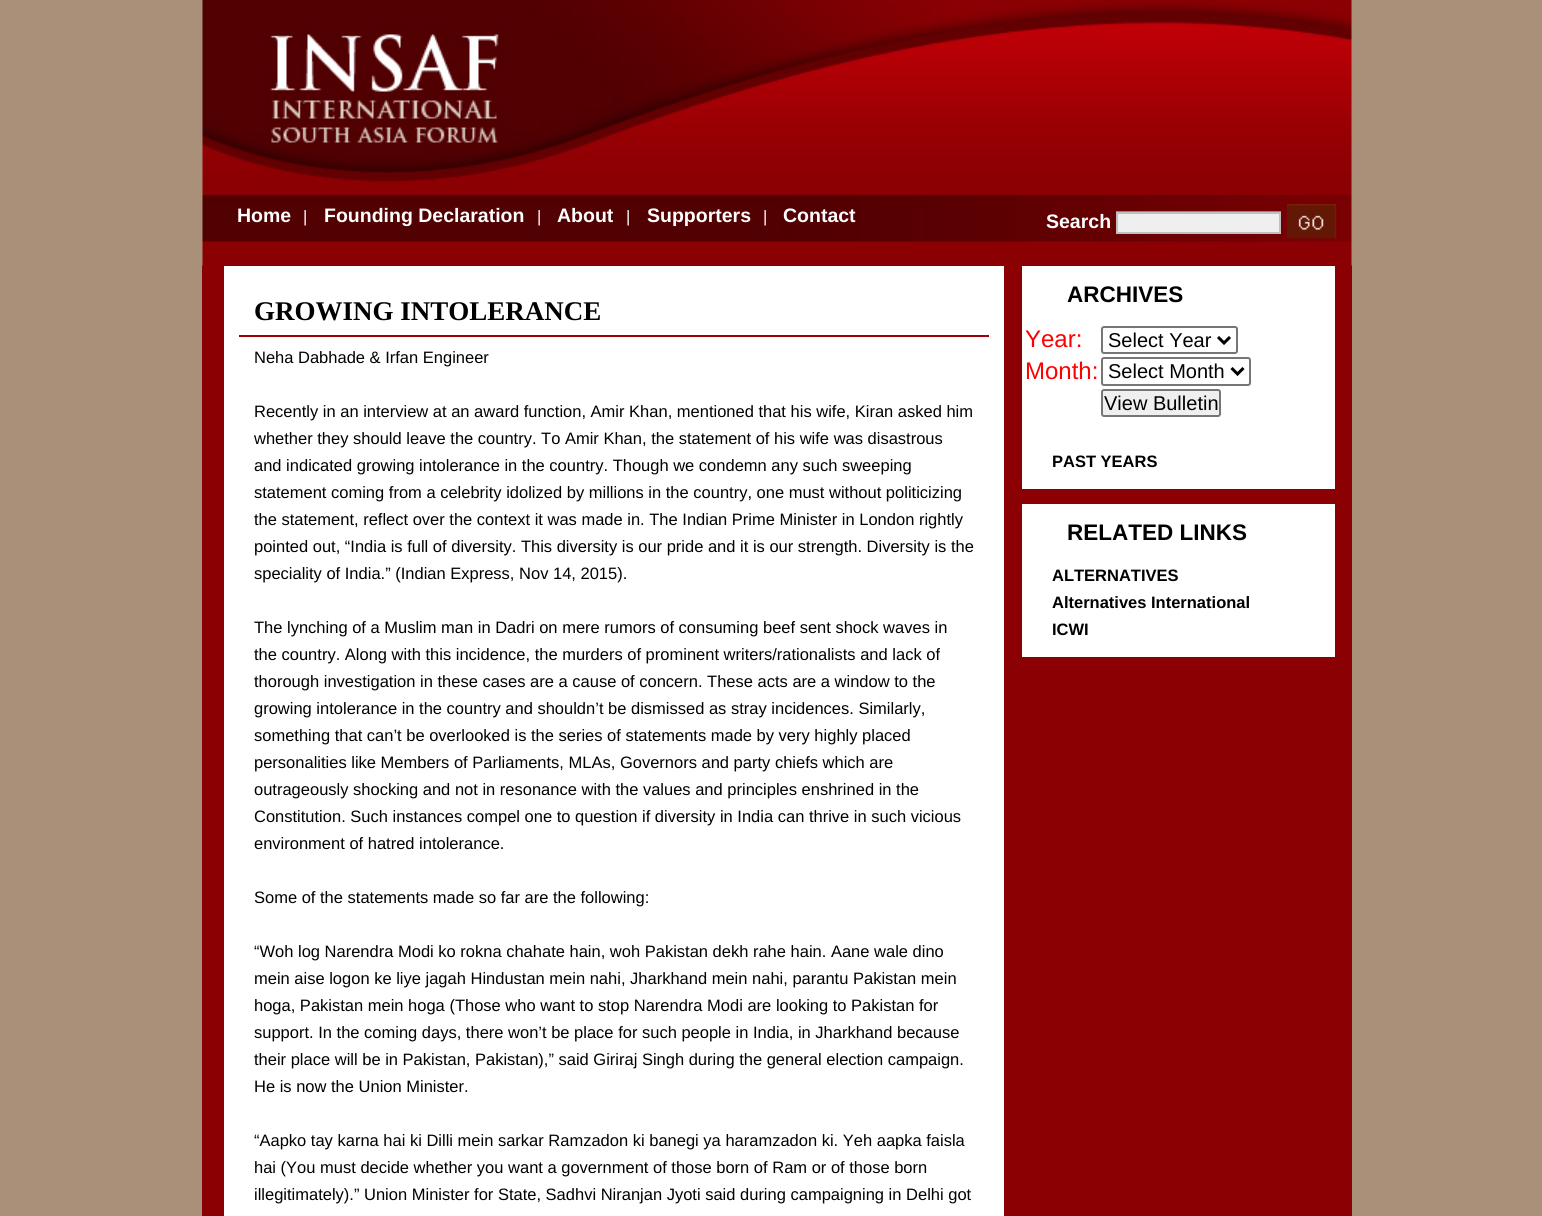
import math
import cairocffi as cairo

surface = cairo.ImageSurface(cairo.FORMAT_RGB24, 1542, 1216)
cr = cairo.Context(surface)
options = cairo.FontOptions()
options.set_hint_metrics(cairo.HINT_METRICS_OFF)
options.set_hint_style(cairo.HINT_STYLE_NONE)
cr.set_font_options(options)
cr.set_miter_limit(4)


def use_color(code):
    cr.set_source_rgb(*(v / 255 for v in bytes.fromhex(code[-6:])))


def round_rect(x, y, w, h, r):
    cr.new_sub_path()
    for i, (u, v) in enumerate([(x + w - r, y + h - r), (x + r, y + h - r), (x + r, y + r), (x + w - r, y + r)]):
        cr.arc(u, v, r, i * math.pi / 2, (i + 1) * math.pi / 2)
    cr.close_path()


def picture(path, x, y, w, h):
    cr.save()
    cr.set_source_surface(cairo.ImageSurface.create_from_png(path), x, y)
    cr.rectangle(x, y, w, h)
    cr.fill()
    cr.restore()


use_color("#aa8f79")
cr.paint()
use_color("#8b0003")
cr.rectangle(202, 265, 1150, 951)
cr.fill()
picture("img1.png", 202, 0, 1150, 266)
cr.select_font_face("Liberation Sans", cairo.FONT_SLANT_NORMAL, cairo.FONT_WEIGHT_BOLD)
cr.set_font_size(19.5)
use_color("#ffffff")
cr.move_to(237, 222)
cr.show_text("Home")
cr.select_font_face("Liberation Sans")
cr.set_font_size(16.5)
cr.move_to(303, 222)
cr.show_text("|")
cr.select_font_face("Liberation Sans", cairo.FONT_SLANT_NORMAL, cairo.FONT_WEIGHT_BOLD)
cr.set_font_size(19.5)
cr.move_to(324, 222)
cr.show_text("Founding Declaration")
cr.select_font_face("Liberation Sans")
cr.set_font_size(16.5)
cr.move_to(537, 222)
cr.show_text("|")
cr.select_font_face("Liberation Sans", cairo.FONT_SLANT_NORMAL, cairo.FONT_WEIGHT_BOLD)
cr.set_font_size(19.5)
cr.move_to(557, 222)
cr.show_text("About")
cr.select_font_face("Liberation Sans")
cr.set_font_size(16.5)
cr.move_to(626, 222)
cr.show_text("|")
cr.select_font_face("Liberation Sans", cairo.FONT_SLANT_NORMAL, cairo.FONT_WEIGHT_BOLD)
cr.set_font_size(19.5)
cr.move_to(647, 222)
cr.show_text("Supporters")
cr.select_font_face("Liberation Sans")
cr.set_font_size(16.5)
cr.move_to(763, 222)
cr.show_text("|")
cr.select_font_face("Liberation Sans", cairo.FONT_SLANT_NORMAL, cairo.FONT_WEIGHT_BOLD)
cr.set_font_size(19.5)
cr.move_to(783, 222)
cr.show_text("Contact")
cr.move_to(1046, 228)
cr.show_text("Search")
use_color("#efefef")
cr.rectangle(1117, 213, 163, 20)
cr.fill_preserve()
use_color("#c0c0c0")
cr.stroke()
cr.set_source_rgba(0.937, 0.937, 0.937, 0.5)
cr.rectangle(1116, 211, 165, 1)
cr.fill()
picture("img2.png", 1287, 204, 50, 35)
use_color("#ffffff")
cr.rectangle(224, 266, 780, 950)
cr.fill()
use_color("#9e0004")
cr.rectangle(239, 335, 750, 2)
cr.fill()
cr.select_font_face("Liberation Serif", cairo.FONT_SLANT_NORMAL, cairo.FONT_WEIGHT_BOLD)
cr.set_font_size(27)
use_color("#000000")
cr.move_to(254, 320)
cr.show_text("GROWING INTOLERANCE")
cr.select_font_face("Liberation Sans")
cr.set_font_size(16.5)
cr.move_to(254, 363)
cr.show_text("Neha Dabhade & Irfan Engineer")
cr.move_to(254, 417)
cr.show_text("Recently in an interview at an award function, Amir Khan, mentioned that his wife, Kiran asked him")
cr.move_to(254, 444)
cr.show_text("whether they should leave the country. To Amir Khan, the statement of his wife was disastrous")
cr.move_to(254, 471)
cr.show_text("and indicated growing intolerance in the country. Though we condemn any such sweeping")
cr.move_to(254, 498)
cr.show_text("statement coming from a celebrity idolized by millions in the country, one must without politicizing")
cr.move_to(254, 525)
cr.show_text("the statement, reflect over the context it was made in. The Indian Prime Minister in London rightly")
cr.move_to(254, 552)
cr.show_text("pointed out, “India is full of diversity. This diversity is our pride and it is our strength. Diversity is the")
cr.move_to(254, 579)
cr.show_text("speciality of India.” (Indian Express, Nov 14, 2015).")
cr.move_to(254, 633)
cr.show_text("The lynching of a Muslim man in Dadri on mere rumors of consuming beef sent shock waves in")
cr.move_to(254, 660)
cr.show_text("the country. Along with this incidence, the murders of prominent writers/rationalists and lack of")
cr.move_to(254, 687)
cr.show_text("thorough investigation in these cases are a cause of concern. These acts are a window to the")
cr.move_to(254, 714)
cr.show_text("growing intolerance in the country and shouldn’t be dismissed as stray incidences. Similarly,")
cr.move_to(254, 741)
cr.show_text("something that can’t be overlooked is the series of statements made by very highly placed")
cr.move_to(254, 768)
cr.show_text("personalities like Members of Parliaments, MLAs, Governors and party chiefs which are")
cr.move_to(254, 795)
cr.show_text("outrageously shocking and not in resonance with the values and principles enshrined in the")
cr.move_to(254, 822)
cr.show_text("Constitution. Such instances compel one to question if diversity in India can thrive in such vicious")
cr.move_to(254, 849)
cr.show_text("environment of hatred intolerance.")
cr.move_to(254, 903)
cr.show_text("Some of the statements made so far are the following:")
cr.move_to(254, 957)
cr.show_text("“Woh log Narendra Modi ko rokna chahate hain, woh Pakistan dekh rahe hain. Aane wale dino")
cr.move_to(254, 984)
cr.show_text("mein aise logon ke liye jagah Hindustan mein nahi, Jharkhand mein nahi, parantu Pakistan mein")
cr.move_to(254, 1011)
cr.show_text("hoga, Pakistan mein hoga (Those who want to stop Narendra Modi are looking to Pakistan for")
cr.move_to(254, 1038)
cr.show_text("support. In the coming days, there won’t be place for such people in India, in Jharkhand because")
cr.move_to(254, 1065)
cr.show_text("their place will be in Pakistan, Pakistan),” said Giriraj Singh during the general election campaign.")
cr.move_to(254, 1092)
cr.show_text("He is now the Union Minister.")
cr.move_to(254, 1146)
cr.show_text("“Aapko tay karna hai ki Dilli mein sarkar Ramzadon ki banegi ya haramzadon ki. Yeh aapka faisla")
cr.move_to(254, 1173)
cr.show_text("hai (You must decide whether you want a government of those born of Ram or of those born")
cr.move_to(254, 1200)
cr.show_text("illegitimately).” Union Minister for State, Sadhvi Niranjan Jyoti said during campaigning in Delhi got")
use_color("#ffffff")
cr.rectangle(1022, 266, 313, 223)
cr.fill()
cr.select_font_face("Liberation Sans", cairo.FONT_SLANT_NORMAL, cairo.FONT_WEIGHT_BOLD)
cr.set_font_size(22.5)
use_color("#000000")
cr.move_to(1067, 302)
cr.show_text("ARCHIVES")
cr.select_font_face("Liberation Sans")
cr.set_font_size(24)
use_color("#ff0000")
cr.move_to(1025, 347)
cr.show_text("Year:")
round_rect(1102, 327, 135, 26, 2)
use_color("#767676")
cr.stroke()
cr.new_path()
cr.move_to(1218, 337)
cr.line_to(1224, 343)
cr.line_to(1230, 337)
use_color("#000000")
cr.set_line_width(3)
cr.stroke()
cr.set_font_size(20)
cr.move_to(1108, 347)
cr.show_text("Select Year")
cr.set_font_size(24)
use_color("#ff0000")
cr.move_to(1025, 379)
cr.show_text("Month:")
round_rect(1102, 358, 148, 27, 2)
use_color("#767676")
cr.set_line_width(2)
cr.stroke()
cr.new_path()
cr.move_to(1231.5, 368)
cr.line_to(1237.5, 374)
cr.line_to(1243.5, 368)
use_color("#000000")
cr.set_line_width(3)
cr.stroke()
cr.set_font_size(20)
cr.move_to(1108, 378)
cr.show_text("Select Month")
use_color("#efefef")
round_rect(1102, 390, 118, 26, 2)
cr.fill_preserve()
use_color("#767676")
cr.set_line_width(2)
cr.stroke()
use_color("#000000")
cr.move_to(1104, 410)
cr.show_text("View Bulletin")
cr.select_font_face("Liberation Sans", cairo.FONT_SLANT_NORMAL, cairo.FONT_WEIGHT_BOLD)
cr.set_font_size(16.5)
cr.move_to(1052, 467)
cr.show_text("PAST YEARS")
use_color("#ffffff")
cr.rectangle(1022, 504, 313, 153)
cr.fill()
cr.set_font_size(22.5)
use_color("#000000")
cr.move_to(1067, 540)
cr.show_text("RELATED LINKS")
cr.set_font_size(16.5)
cr.move_to(1052, 581)
cr.show_text("ALTERNATIVES")
cr.move_to(1052, 608)
cr.show_text("Alternatives International")
cr.move_to(1052, 635)
cr.show_text("ICWI")
surface.write_to_png("result.png")
